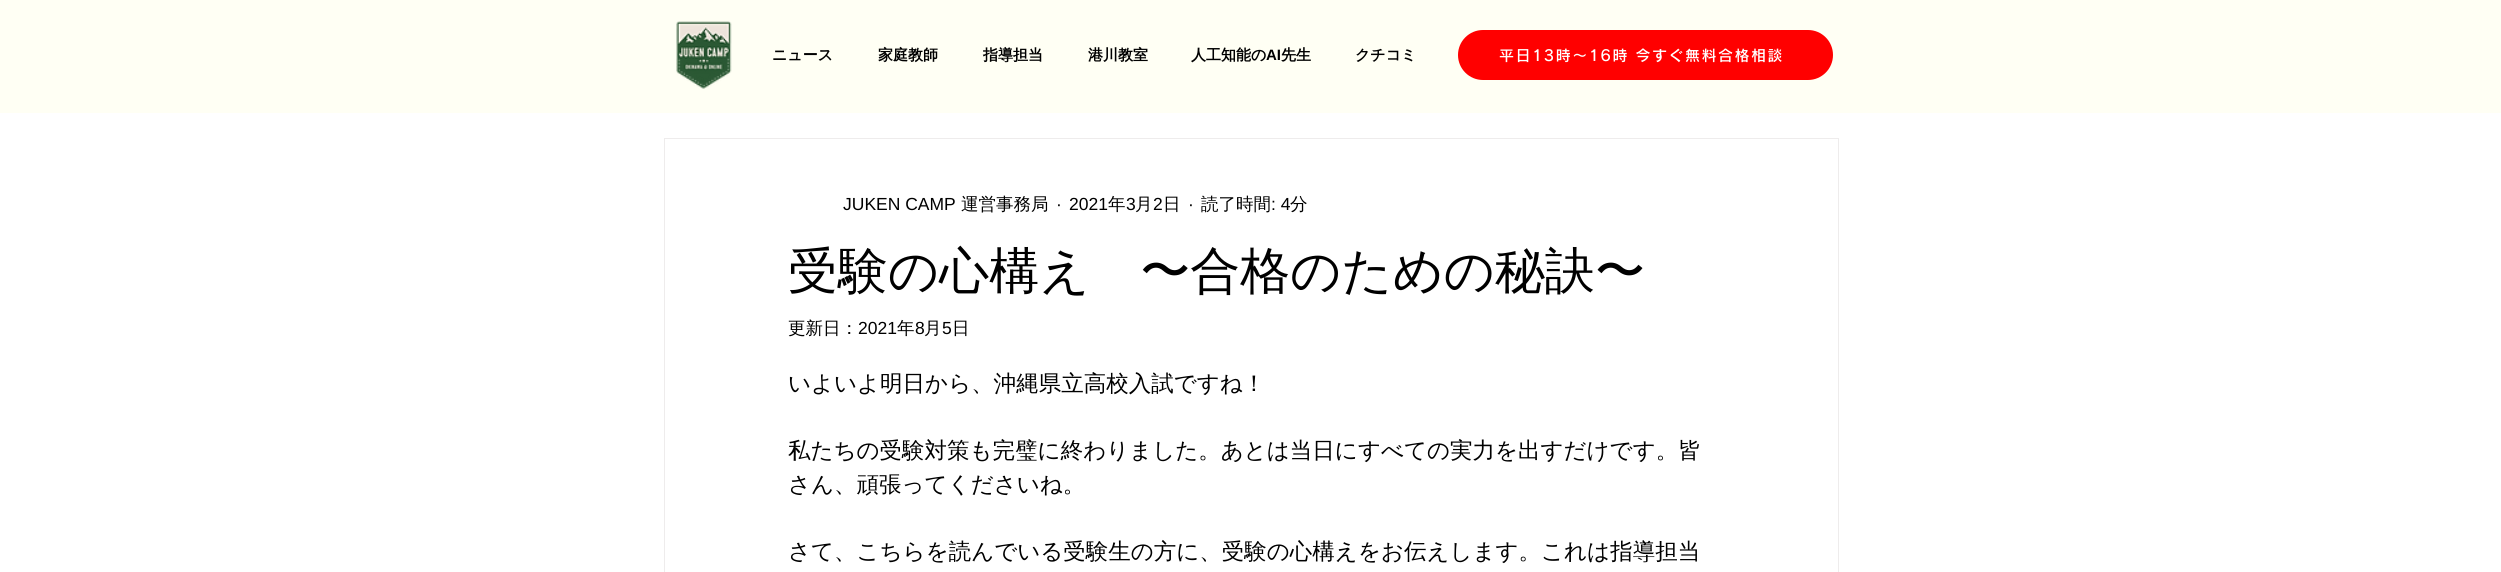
import math
import cairocffi as cairo

surface = cairo.ImageSurface(cairo.FORMAT_RGB24, 2501, 572)
cr = cairo.Context(surface)
options = cairo.FontOptions()
options.set_hint_metrics(cairo.HINT_METRICS_OFF)
options.set_hint_style(cairo.HINT_STYLE_NONE)
cr.set_font_options(options)
cr.set_miter_limit(4)


def use_color(code):
    cr.set_source_rgb(*(v / 255 for v in bytes.fromhex(code[-6:])))


def spaced_text(x, y, s, letter, word):
    cr.move_to(x, y)
    for ch in s:
        cr.show_text(ch)
        cr.rel_move_to(letter + word * (ch == ' '), 0)


def round_rect(x, y, w, h, r):
    cr.new_sub_path()
    for i, (u, v) in enumerate([(x + w - r, y + h - r), (x + r, y + h - r), (x + r, y + r), (x + w - r, y + r)]):
        cr.arc(u, v, r, i * math.pi / 2, (i + 1) * math.pi / 2)
    cr.close_path()


def picture(path, x, y, w, h):
    cr.save()
    cr.set_source_surface(cairo.ImageSurface.create_from_png(path), x, y)
    cr.rectangle(x, y, w, h)
    cr.fill()
    cr.restore()


use_color("#ffffff")
cr.paint()
use_color("#fffff4")
cr.rectangle(0, 0, 2501, 113)
cr.fill()
picture("img1.png", 676, 21, 56, 68)
cr.select_font_face("WenQuanYi Zen Hei", cairo.FONT_SLANT_NORMAL, cairo.FONT_WEIGHT_BOLD)
cr.set_font_size(15)
use_color("#000000")
cr.move_to(772, 60)
cr.show_text("ニュース")
cr.move_to(878, 60)
cr.show_text("家庭教師")
cr.move_to(983, 60)
cr.show_text("指導担当")
cr.move_to(1088, 60)
cr.show_text("港川教室")
cr.move_to(1191, 60)
cr.show_text("人工知能の")
cr.select_font_face("Liberation Sans", cairo.FONT_SLANT_NORMAL, cairo.FONT_WEIGHT_BOLD)
cr.move_to(1266, 60)
cr.show_text("AI")
cr.select_font_face("WenQuanYi Zen Hei", cairo.FONT_SLANT_NORMAL, cairo.FONT_WEIGHT_BOLD)
cr.move_to(1281, 60)
cr.show_text("先生")
cr.move_to(1355, 60)
cr.show_text("クチコミ")
use_color("#ff0000")
round_rect(1458, 30, 375, 50, 25)
cr.fill()
cr.select_font_face("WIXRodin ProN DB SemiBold")
use_color("#ffffff")
spaced_text(1499, 61, "平日13時〜16時 今すぐ無料合格相談", 1.5, 0)
cr.rectangle(664.5, 138.5, 1174, 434)
use_color("#eeecec")
cr.set_line_width(1)
cr.stroke()
cr.select_font_face("Liberation Sans")
cr.set_font_size(17.5)
use_color("#000000")
cr.move_to(843, 210)
cr.show_text("JUKEN CAMP")
cr.select_font_face("WenQuanYi Zen Hei Medium")
cr.move_to(961, 210)
cr.show_text("運営事務局")
cr.select_font_face("Liberation Sans")
cr.move_to(1056, 210)
cr.show_text("·")
cr.move_to(1069, 210)
cr.show_text("2021")
cr.select_font_face("WenQuanYi Zen Hei Medium")
cr.move_to(1108, 210)
cr.show_text("年")
cr.select_font_face("Liberation Sans")
cr.move_to(1126, 210)
cr.show_text("3")
cr.select_font_face("WenQuanYi Zen Hei Medium")
cr.move_to(1135, 210)
cr.show_text("月")
cr.select_font_face("Liberation Sans")
cr.move_to(1153, 210)
cr.show_text("2")
cr.select_font_face("WenQuanYi Zen Hei Medium")
cr.move_to(1163, 210)
cr.show_text("日")
cr.select_font_face("Liberation Sans")
cr.move_to(1188, 210)
cr.show_text("·")
cr.select_font_face("WenQuanYi Zen Hei Medium")
cr.move_to(1201, 210)
cr.show_text("読了時間")
cr.select_font_face("Liberation Sans")
cr.move_to(1271, 210)
cr.show_text(": 4")
cr.select_font_face("WenQuanYi Zen Hei Medium")
cr.move_to(1290, 210)
cr.show_text("分")
cr.set_font_size(50)
cr.move_to(788, 288)
cr.show_text("受験の心構え　〜合格のための秘訣〜")
cr.set_font_size(17.5)
cr.move_to(788, 334)
cr.show_text("更新日：")
cr.select_font_face("Liberation Sans")
cr.move_to(858, 334)
cr.show_text("2021")
cr.select_font_face("WenQuanYi Zen Hei Medium")
cr.move_to(897, 334)
cr.show_text("年")
cr.select_font_face("Liberation Sans")
cr.move_to(915, 334)
cr.show_text("8")
cr.select_font_face("WenQuanYi Zen Hei Medium")
cr.move_to(924, 334)
cr.show_text("月")
cr.select_font_face("Liberation Sans")
cr.move_to(942, 334)
cr.show_text("5")
cr.select_font_face("WenQuanYi Zen Hei Medium")
cr.move_to(952, 334)
cr.show_text("日")
cr.set_font_size(22.5)
cr.move_to(788, 391)
cr.show_text("いよいよ明日から、沖縄県立高校入試ですね！")
cr.move_to(788, 458)
cr.show_text("私たちの受験対策も完璧に終わりました。あとは当日にすべての実力を出すだけです。皆")
cr.move_to(788, 492)
cr.show_text("さん、頑張ってくださいね。")
cr.move_to(788, 559)
cr.show_text("さて、こちらを読んでいる受験生の方に、受験の心構えをお伝えします。これは指導担当")
surface.write_to_png("result.png")
